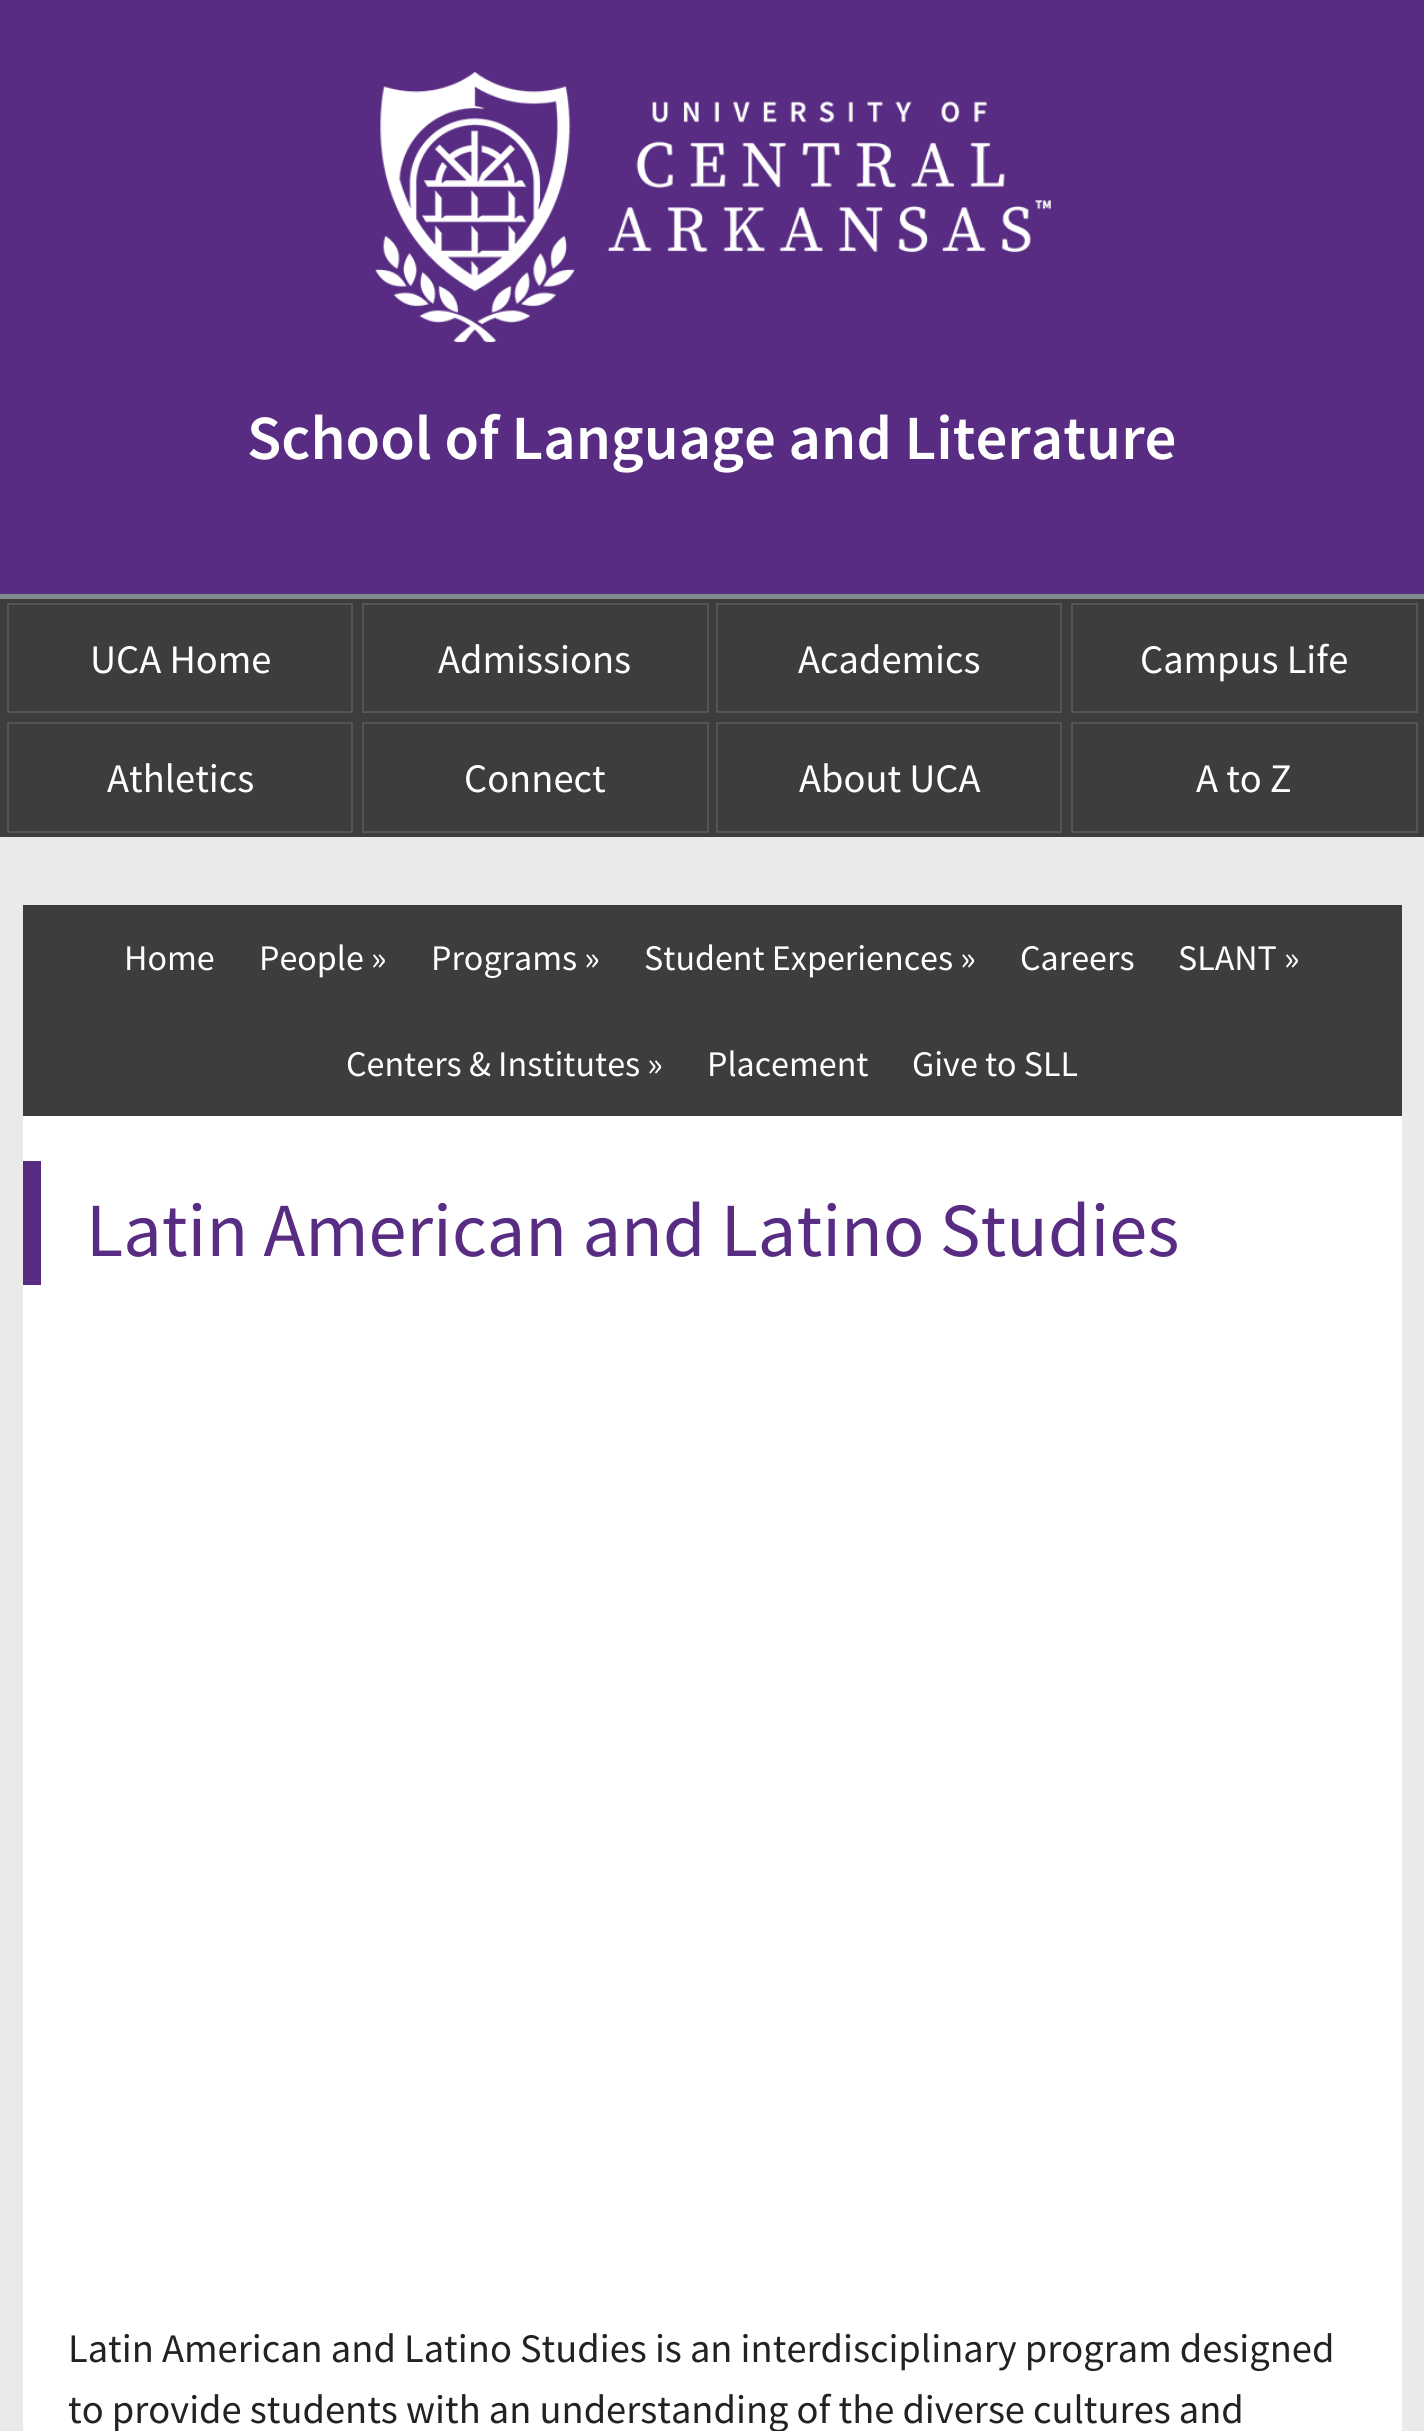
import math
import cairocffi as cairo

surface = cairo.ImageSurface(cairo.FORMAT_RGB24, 1424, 2431)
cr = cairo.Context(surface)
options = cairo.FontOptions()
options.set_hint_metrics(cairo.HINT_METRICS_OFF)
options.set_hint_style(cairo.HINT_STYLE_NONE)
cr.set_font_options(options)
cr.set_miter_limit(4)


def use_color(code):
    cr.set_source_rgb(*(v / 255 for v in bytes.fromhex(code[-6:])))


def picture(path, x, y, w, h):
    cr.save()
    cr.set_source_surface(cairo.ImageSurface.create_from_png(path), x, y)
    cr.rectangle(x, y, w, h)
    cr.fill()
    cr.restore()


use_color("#eaeaea")
cr.paint()
use_color("#582c83")
cr.rectangle(0, 0, 1424, 594)
cr.fill()
use_color("#818a8f")
cr.rectangle(0, 594, 1424, 5)
cr.fill()
picture("img1.png", 375, 72, 676, 271)
cr.select_font_face("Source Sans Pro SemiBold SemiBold")
cr.set_font_size(63)
use_color("#ffffff")
cr.move_to(247, 459)
cr.show_text("School of Language and Literature")
use_color("#3d3d3d")
cr.rectangle(0, 599, 1424, 238)
cr.fill()
cr.rectangle(8, 604, 344, 108)
use_color("#555555")
cr.stroke()
cr.select_font_face("Source Sans Pro")
cr.set_font_size(40.5)
use_color("#ffffff")
cr.move_to(90, 673)
cr.show_text("UCA Home")
cr.rectangle(363, 604, 345, 108)
use_color("#555555")
cr.stroke()
use_color("#ffffff")
cr.move_to(438, 673)
cr.show_text("Admissions")
cr.rectangle(717, 604, 344, 108)
use_color("#555555")
cr.stroke()
use_color("#ffffff")
cr.move_to(798, 673)
cr.show_text("Academics")
cr.rectangle(1072, 604, 345, 108)
use_color("#555555")
cr.stroke()
use_color("#ffffff")
cr.move_to(1140, 673)
cr.show_text("Campus Life")
cr.rectangle(8, 723, 344, 109)
use_color("#555555")
cr.stroke()
use_color("#ffffff")
cr.move_to(107, 792)
cr.show_text("Athletics")
cr.rectangle(363, 723, 345, 109)
use_color("#555555")
cr.stroke()
use_color("#ffffff")
cr.move_to(464, 792)
cr.show_text("Connect")
cr.rectangle(717, 723, 344, 109)
use_color("#555555")
cr.stroke()
use_color("#ffffff")
cr.move_to(799, 792)
cr.show_text("About UCA")
cr.rectangle(1072, 723, 345, 109)
use_color("#555555")
cr.stroke()
use_color("#ffffff")
cr.move_to(1196, 792)
cr.show_text("A to Z")
use_color("#3d3d3d")
cr.rectangle(23, 905, 1379, 211)
cr.fill()
cr.set_font_size(36)
use_color("#ffffff")
cr.move_to(124, 970)
cr.show_text("Home")
cr.move_to(259, 970)
cr.show_text("People »")
cr.move_to(431, 970)
cr.show_text("Programs »")
cr.move_to(644, 970)
cr.show_text("Student Experiences »")
cr.move_to(1020, 970)
cr.show_text("Careers")
cr.move_to(1178, 970)
cr.show_text("SLANT »")
cr.move_to(346, 1076)
cr.show_text("Centers & Institutes »")
cr.move_to(707, 1076)
cr.show_text("Placement")
cr.move_to(912, 1076)
cr.show_text("Give to SLL")
cr.rectangle(23, 1116, 1379, 1315)
cr.fill()
use_color("#582c83")
cr.rectangle(23, 1161, 18, 124)
cr.fill()
cr.set_font_size(76.5)
cr.move_to(86, 1256)
cr.show_text("Latin American and Latino Studies")
cr.set_font_size(40.5)
use_color("#222222")
cr.move_to(68, 2362)
cr.show_text("Latin American and Latino Studies is an interdisciplinary program designed")
cr.move_to(68, 2423)
cr.show_text("to provide students with an understanding of the diverse cultures and")
surface.write_to_png("result.png")
